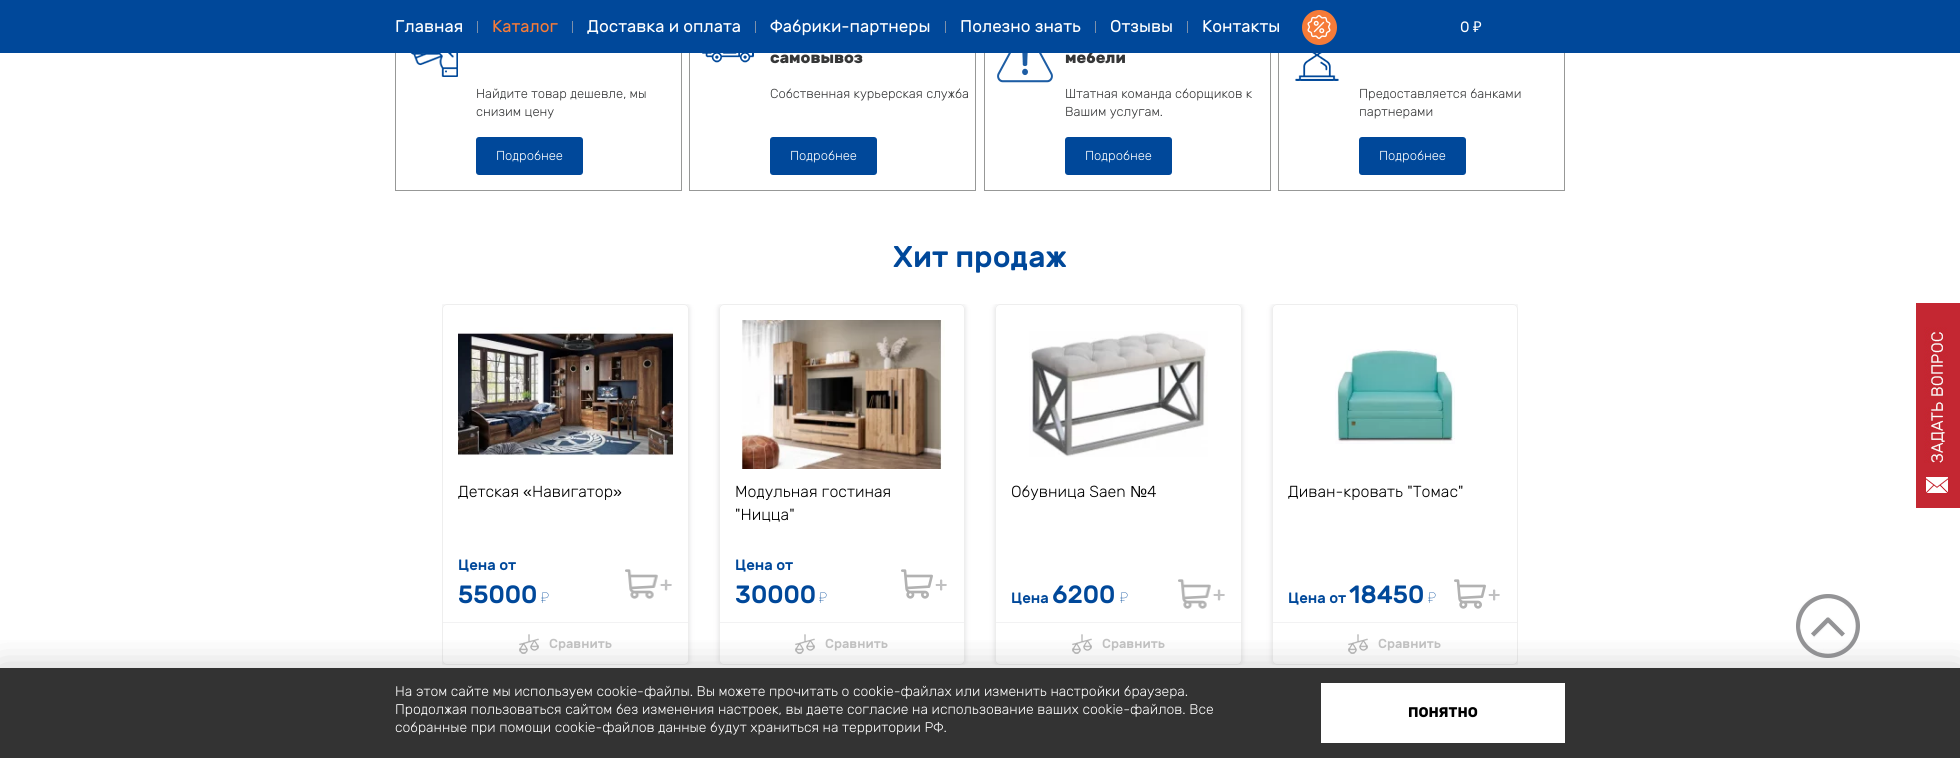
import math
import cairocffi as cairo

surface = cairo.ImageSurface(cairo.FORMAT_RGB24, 1960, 758)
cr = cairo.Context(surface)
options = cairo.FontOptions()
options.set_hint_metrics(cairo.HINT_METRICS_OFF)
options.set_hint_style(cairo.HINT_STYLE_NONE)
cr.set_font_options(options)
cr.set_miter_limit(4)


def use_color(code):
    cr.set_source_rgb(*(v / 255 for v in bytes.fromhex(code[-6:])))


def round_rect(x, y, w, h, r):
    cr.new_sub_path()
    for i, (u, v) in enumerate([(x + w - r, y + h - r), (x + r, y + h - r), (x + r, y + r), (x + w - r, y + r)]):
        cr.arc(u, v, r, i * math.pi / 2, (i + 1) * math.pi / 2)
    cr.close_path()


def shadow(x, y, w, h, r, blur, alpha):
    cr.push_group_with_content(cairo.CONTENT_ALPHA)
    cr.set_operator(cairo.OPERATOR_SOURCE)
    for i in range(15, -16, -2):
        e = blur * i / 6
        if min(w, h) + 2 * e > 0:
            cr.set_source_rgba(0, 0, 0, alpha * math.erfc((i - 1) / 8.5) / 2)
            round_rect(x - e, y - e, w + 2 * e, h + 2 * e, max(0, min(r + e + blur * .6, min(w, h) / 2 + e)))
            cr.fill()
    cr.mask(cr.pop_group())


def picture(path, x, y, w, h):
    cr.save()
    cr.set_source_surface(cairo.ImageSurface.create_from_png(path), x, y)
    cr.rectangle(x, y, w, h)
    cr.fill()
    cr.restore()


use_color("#ffffff")
cr.paint()
use_color("#333333")
cr.rectangle(0, 668, 1960, 90)
cr.fill()
cr.rectangle(395.5, 8.5, 286, 182)
use_color("#979897")
cr.set_line_width(1)
cr.stroke()
cr.rectangle(689.5, 8.5, 286, 182)
cr.stroke()
cr.rectangle(984.5, 8.5, 286, 182)
cr.stroke()
cr.select_font_face("Rubik", cairo.FONT_SLANT_NORMAL, cairo.FONT_WEIGHT_BOLD)
cr.set_font_size(16)
use_color("#363738")
cr.move_to(1065, 63)
cr.show_text("мебели")
cr.rectangle(1278.5, 8.5, 286, 182)
use_color("#979897")
cr.stroke()
use_color("#00489a")
cr.rectangle(0, 0, 1960, 53)
cr.fill()
cr.select_font_face("Rubik")
cr.set_font_size(17)
use_color("#ffffff")
cr.move_to(395, 32)
cr.show_text("Главная")
use_color("#7c90ab")
cr.rectangle(477, 21, 1, 12)
cr.fill()
use_color("#f67b38")
cr.move_to(492, 32)
cr.show_text("Каталог")
use_color("#7c90ab")
cr.rectangle(572, 21, 1, 12)
cr.fill()
use_color("#ffffff")
cr.move_to(587, 32)
cr.show_text("Доставка и оплата")
use_color("#7c90ab")
cr.rectangle(755, 21, 1, 12)
cr.fill()
use_color("#ffffff")
cr.move_to(770, 32)
cr.show_text("Фабрики-партнеры")
use_color("#7c90ab")
cr.rectangle(945, 21, 1, 12)
cr.fill()
use_color("#ffffff")
cr.move_to(960, 32)
cr.show_text("Полезно знать")
use_color("#7c90ab")
cr.rectangle(1095, 21, 1, 12)
cr.fill()
use_color("#ffffff")
cr.move_to(1110, 32)
cr.show_text("Отзывы")
use_color("#7c90ab")
cr.rectangle(1187, 21, 1, 12)
cr.fill()
use_color("#ffffff")
cr.move_to(1202, 32)
cr.show_text("Контакты")
use_color("#f67b38")
cr.new_path()
cr.arc(1319.5, 27.5, 17.5, 0, 2 * math.pi)
cr.fill()
picture("img1.png", 1307, 15, 24, 24)
cr.set_font_size(15)
use_color("#ffffff")
cr.move_to(1460, 32)
cr.show_text("0")
cr.select_font_face("Noto Sans")
cr.move_to(1473, 32)
cr.show_text("₽")
picture("img2.png", 410, 53, 48, 24)
cr.select_font_face("Rubik Light")
cr.set_font_size(13)
use_color("#363738")
cr.move_to(476, 98)
cr.show_text("Найдите товар дешевле, мы")
cr.move_to(476, 116)
cr.show_text("снизим цену")
use_color("#00489a")
round_rect(476, 137, 107, 38, 3)
cr.fill()
use_color("#ffffff")
cr.move_to(496, 160)
cr.show_text("Подробнее")
picture("img3.png", 702, 53, 52, 10)
cr.select_font_face("Rubik", cairo.FONT_SLANT_NORMAL, cairo.FONT_WEIGHT_BOLD)
cr.set_font_size(16)
use_color("#363738")
cr.move_to(770, 63)
cr.show_text("самовывоз")
cr.select_font_face("Rubik Light")
cr.set_font_size(13)
cr.move_to(770, 98)
cr.show_text("Собственная курьерская служба")
use_color("#00489a")
round_rect(770, 137, 107, 38, 3)
cr.fill()
use_color("#ffffff")
cr.move_to(790, 160)
cr.show_text("Подробнее")
picture("img4.png", 997, 53, 56, 30)
use_color("#363738")
cr.move_to(1065, 98)
cr.show_text("Штатная команда сборщиков к")
cr.move_to(1065, 116)
cr.show_text("Вашим услугам.")
use_color("#00489a")
round_rect(1065, 137, 107, 38, 3)
cr.fill()
use_color("#ffffff")
cr.move_to(1085, 160)
cr.show_text("Подробнее")
picture("img5.png", 1295, 53, 44, 28)
use_color("#363738")
cr.move_to(1359, 98)
cr.show_text("Предоставляется банками")
cr.move_to(1359, 116)
cr.show_text("партнерами")
use_color("#00489a")
round_rect(1359, 137, 107, 38, 3)
cr.fill()
use_color("#ffffff")
cr.move_to(1379, 160)
cr.show_text("Подробнее")
cr.select_font_face("Rubik Medium")
cr.set_font_size(30)
use_color("#00489a")
cr.move_to(893, 267)
cr.show_text("Хит продаж")
cr.save()
cr.rectangle(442, 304, 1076, 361)
cr.clip()
cr.set_fill_rule(cairo.FILL_RULE_EVEN_ODD)
cr.new_path()
cr.move_to(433, 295)
cr.line_to(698, 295)
cr.line_to(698, 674)
cr.line_to(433, 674)
cr.close_path()
cr.move_to(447, 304)
cr.line_to(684, 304)
cr.curve_to(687, 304, 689, 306, 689, 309)
cr.line_to(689, 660)
cr.curve_to(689, 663, 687, 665, 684, 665)
cr.line_to(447, 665)
cr.curve_to(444, 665, 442, 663, 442, 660)
cr.line_to(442, 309)
cr.curve_to(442, 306, 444, 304, 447, 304)
cr.close_path()
cr.clip()
use_color("#b0afb2")
shadow(442, 304, 247, 361, 5, 2.5, 0.4)
cr.restore()
round_rect(442.5, 304.5, 246, 360, 4.5)
use_color("#eeeeee")
cr.stroke()
picture("img6.png", 458, 327, 215, 129)
cr.select_font_face("Rubik Light")
cr.set_font_size(16)
use_color("#000000")
cr.move_to(458, 497)
cr.show_text("Детская")
cr.select_font_face("Liberation Sans")
cr.move_to(523, 497)
cr.show_text("«")
cr.select_font_face("Rubik Light")
cr.move_to(532, 497)
cr.show_text("Навигатор")
cr.select_font_face("Liberation Sans")
cr.move_to(613, 497)
cr.show_text("»")
cr.select_font_face("Rubik Medium")
cr.set_font_size(15)
use_color("#00489a")
cr.move_to(458, 570)
cr.show_text("Цена от")
cr.set_font_size(25)
cr.move_to(458, 603)
cr.show_text("55000")
cr.select_font_face("Noto Sans Thin")
cr.set_font_size(15)
cr.move_to(541, 603)
cr.show_text("₽")
picture("img7.png", 625, 569, 47, 30)
use_color("#f2f2f3")
cr.rectangle(443, 622, 245, 1)
cr.fill()
picture("img8.png", 519, 634, 20, 20)
cr.select_font_face("Rubik Medium")
cr.set_font_size(13)
use_color("#c3c3c3")
cr.move_to(549, 648)
cr.show_text("Сравнить")
cr.save()
cr.rectangle(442, 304, 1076, 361)
cr.clip()
cr.set_fill_rule(cairo.FILL_RULE_EVEN_ODD)
cr.new_path()
cr.move_to(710, 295)
cr.line_to(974, 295)
cr.line_to(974, 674)
cr.line_to(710, 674)
cr.close_path()
cr.move_to(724, 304)
cr.line_to(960, 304)
cr.curve_to(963, 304, 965, 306, 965, 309)
cr.line_to(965, 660)
cr.curve_to(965, 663, 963, 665, 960, 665)
cr.line_to(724, 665)
cr.curve_to(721, 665, 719, 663, 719, 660)
cr.line_to(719, 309)
cr.curve_to(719, 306, 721, 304, 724, 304)
cr.close_path()
cr.clip()
use_color("#b0afb2")
shadow(719, 304, 246, 361, 5, 2.5, 0.4)
cr.restore()
round_rect(719.5, 304.5, 245, 360, 4.5)
use_color("#eeeeee")
cr.stroke()
picture("img9.png", 741, 320, 204, 149)
cr.select_font_face("Rubik Light")
cr.set_font_size(16)
use_color("#000000")
cr.move_to(735, 497)
cr.show_text("Модульная гостиная")
cr.move_to(735, 520)
cr.show_text("\"Ницца\"")
cr.select_font_face("Rubik Medium")
cr.set_font_size(15)
use_color("#00489a")
cr.move_to(735, 570)
cr.show_text("Цена от")
cr.set_font_size(25)
cr.move_to(735, 603)
cr.show_text("30000")
cr.select_font_face("Noto Sans Thin")
cr.set_font_size(15)
cr.move_to(819, 603)
cr.show_text("₽")
picture("img10.png", 901, 569, 46, 30)
use_color("#f2f2f3")
cr.rectangle(720, 622, 244, 1)
cr.fill()
picture("img8.png", 795, 634, 20, 20)
cr.select_font_face("Rubik Medium")
cr.set_font_size(13)
use_color("#c3c3c3")
cr.move_to(825, 648)
cr.show_text("Сравнить")
cr.save()
cr.rectangle(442, 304, 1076, 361)
cr.clip()
cr.set_fill_rule(cairo.FILL_RULE_EVEN_ODD)
cr.new_path()
cr.move_to(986, 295)
cr.line_to(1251, 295)
cr.line_to(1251, 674)
cr.line_to(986, 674)
cr.close_path()
cr.move_to(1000, 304)
cr.line_to(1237, 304)
cr.curve_to(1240, 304, 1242, 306, 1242, 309)
cr.line_to(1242, 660)
cr.curve_to(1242, 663, 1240, 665, 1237, 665)
cr.line_to(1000, 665)
cr.curve_to(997, 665, 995, 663, 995, 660)
cr.line_to(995, 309)
cr.curve_to(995, 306, 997, 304, 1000, 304)
cr.close_path()
cr.clip()
use_color("#b0afb2")
shadow(995, 304, 247, 361, 5, 2.5, 0.4)
cr.restore()
round_rect(995.5, 304.5, 246, 360, 4.5)
use_color("#eeeeee")
cr.stroke()
picture("img11.png", 1029, 331, 179, 126)
cr.select_font_face("Rubik Light")
cr.set_font_size(16)
use_color("#000000")
cr.move_to(1011, 497)
cr.show_text("Обувница Saen")
cr.select_font_face("Liberation Sans")
cr.move_to(1130, 497)
cr.show_text("№")
cr.select_font_face("Rubik Light")
cr.move_to(1147, 497)
cr.show_text("4")
cr.select_font_face("Rubik Medium")
cr.set_font_size(15)
use_color("#00489a")
cr.move_to(1011, 603)
cr.show_text("Цена")
cr.set_font_size(25)
cr.move_to(1052, 603)
cr.show_text("6200")
cr.select_font_face("Noto Sans Thin")
cr.set_font_size(15)
cr.move_to(1120, 603)
cr.show_text("₽")
picture("img7.png", 1178, 579, 47, 30)
use_color("#f2f2f3")
cr.rectangle(996, 622, 245, 1)
cr.fill()
picture("img8.png", 1072, 634, 20, 20)
cr.select_font_face("Rubik Medium")
cr.set_font_size(13)
use_color("#c3c3c3")
cr.move_to(1102, 648)
cr.show_text("Сравнить")
cr.save()
cr.rectangle(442, 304, 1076, 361)
cr.clip()
cr.set_fill_rule(cairo.FILL_RULE_EVEN_ODD)
cr.new_path()
cr.move_to(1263, 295)
cr.line_to(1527, 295)
cr.line_to(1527, 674)
cr.line_to(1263, 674)
cr.close_path()
cr.move_to(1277, 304)
cr.line_to(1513, 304)
cr.curve_to(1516, 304, 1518, 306, 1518, 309)
cr.line_to(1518, 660)
cr.curve_to(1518, 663, 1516, 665, 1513, 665)
cr.line_to(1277, 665)
cr.curve_to(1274, 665, 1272, 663, 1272, 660)
cr.line_to(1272, 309)
cr.curve_to(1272, 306, 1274, 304, 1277, 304)
cr.close_path()
cr.clip()
use_color("#b0afb2")
shadow(1272, 304, 246, 361, 5, 2.5, 0.4)
cr.restore()
round_rect(1272.5, 304.5, 245, 360, 4.5)
use_color("#eeeeee")
cr.stroke()
picture("img12.png", 1335, 349, 120, 95)
cr.select_font_face("Rubik Light")
cr.set_font_size(16)
use_color("#000000")
cr.move_to(1288, 497)
cr.show_text("Диван-кровать \"Томас\"")
cr.select_font_face("Rubik Medium")
cr.set_font_size(15)
use_color("#00489a")
cr.move_to(1288, 603)
cr.show_text("Цена от")
cr.set_font_size(25)
cr.move_to(1349, 603)
cr.show_text("18450")
cr.select_font_face("Noto Sans Thin")
cr.set_font_size(15)
cr.move_to(1428, 603)
cr.show_text("₽")
picture("img10.png", 1454, 579, 46, 30)
use_color("#f2f2f3")
cr.rectangle(1273, 622, 244, 1)
cr.fill()
picture("img8.png", 1348, 634, 20, 20)
cr.select_font_face("Rubik Medium")
cr.set_font_size(13)
use_color("#c3c3c3")
cr.move_to(1378, 648)
cr.show_text("Сравнить")
picture("img13.png", 1916, 303, 44, 205)
picture("img14.png", 1796, 594, 64, 64)
cr.save()
cr.rectangle(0, 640, 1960, 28)
cr.clip()
use_color("#636363")
shadow(0, 671, 1960, 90, 0, 19, 0.38)
cr.restore()
cr.select_font_face("Rubik Light")
cr.set_font_size(14)
use_color("#ffffff")
cr.move_to(395, 696)
cr.show_text("На этом сайте мы используем cookie-файлы. Вы можете прочитать о cookie-файлах или изменить настройки браузера.")
cr.move_to(395, 714)
cr.show_text("Продолжая пользоваться сайтом без изменения настроек, вы даете согласие на использование ваших cookie-файлов. Все")
cr.move_to(395, 732)
cr.show_text("собранные при помощи cookie-файлов данные будут храниться на территории РФ.")
cr.rectangle(1321, 683, 244, 60)
cr.fill()
cr.select_font_face("Rubik", cairo.FONT_SLANT_NORMAL, cairo.FONT_WEIGHT_BOLD)
use_color("#000000")
cr.move_to(1408, 717)
cr.show_text("ПОНЯТНО")
surface.write_to_png("result.png")
